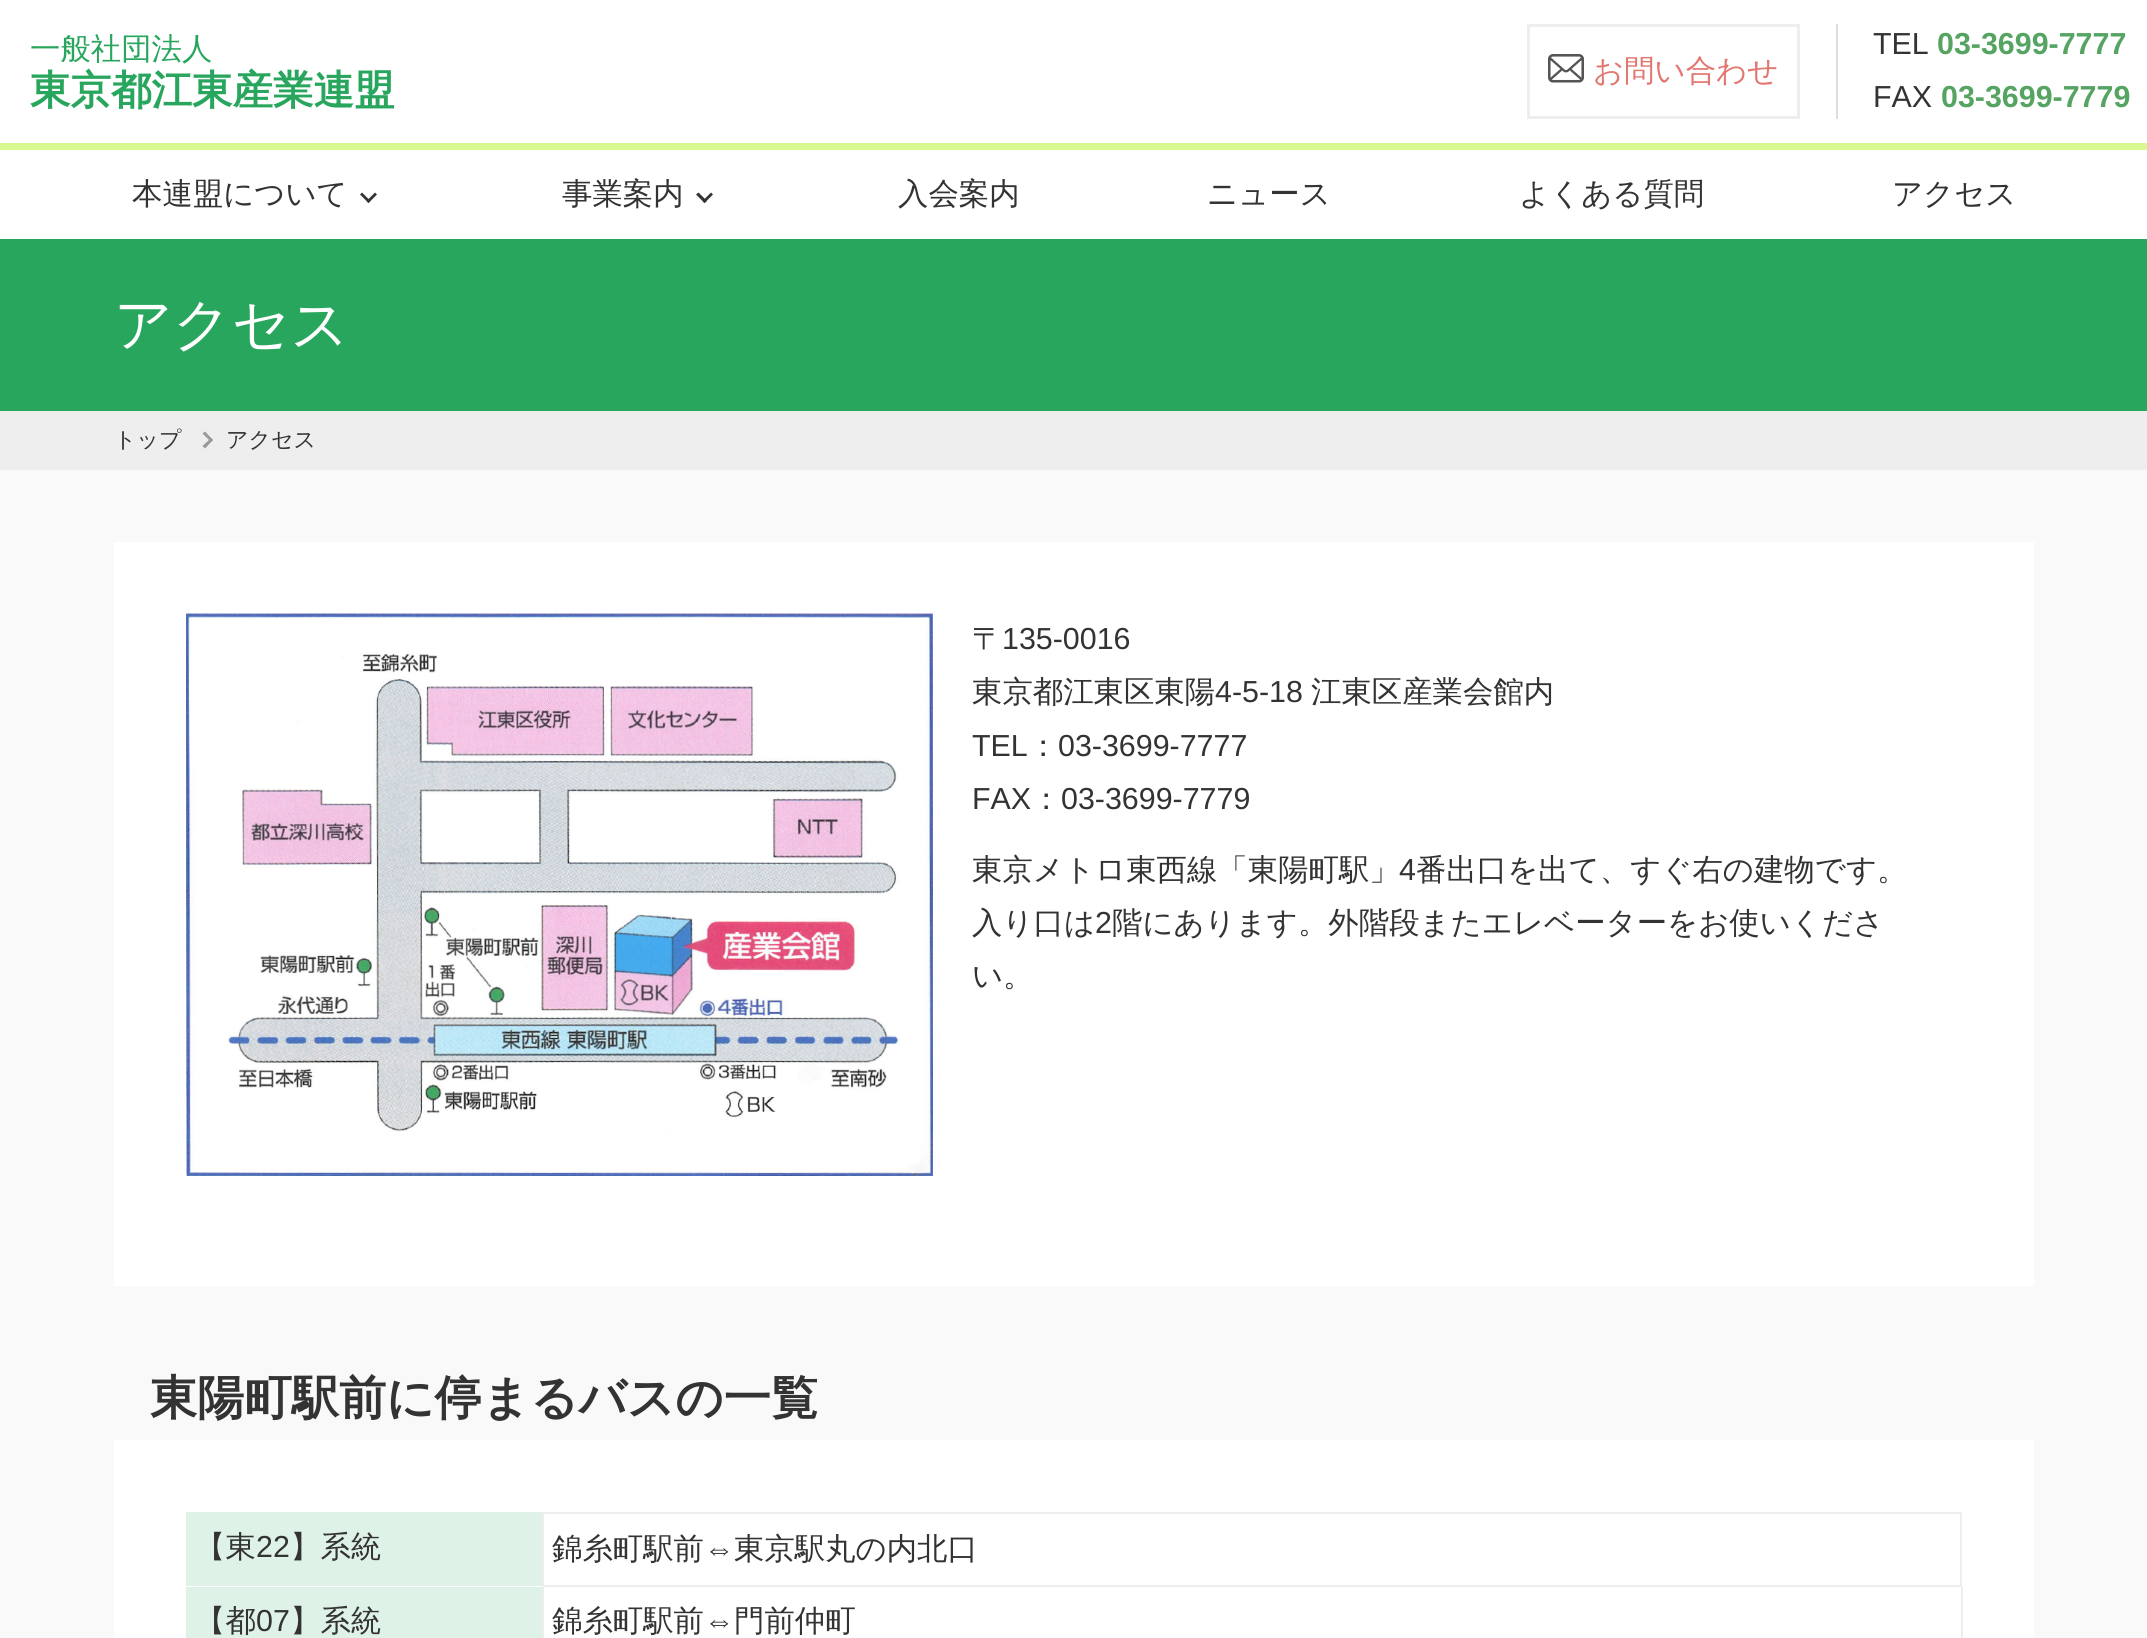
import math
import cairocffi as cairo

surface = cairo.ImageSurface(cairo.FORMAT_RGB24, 2147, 1638)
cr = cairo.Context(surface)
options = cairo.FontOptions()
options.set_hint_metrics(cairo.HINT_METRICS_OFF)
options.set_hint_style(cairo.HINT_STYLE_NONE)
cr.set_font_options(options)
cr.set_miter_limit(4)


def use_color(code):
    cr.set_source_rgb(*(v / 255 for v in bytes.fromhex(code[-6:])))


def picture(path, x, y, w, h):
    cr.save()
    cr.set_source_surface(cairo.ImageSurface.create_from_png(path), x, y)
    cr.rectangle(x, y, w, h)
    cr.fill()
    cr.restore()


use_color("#ffffff")
cr.paint()
cr.select_font_face("WenQuanYi Zen Hei Medium")
cr.set_font_size(30.4)
use_color("#29a65e")
cr.move_to(30, 59)
cr.show_text("一般社団法人")
cr.select_font_face("WenQuanYi Zen Hei", cairo.FONT_SLANT_NORMAL, cairo.FONT_WEIGHT_BOLD)
cr.set_font_size(40.5)
cr.move_to(30, 104)
cr.show_text("東京都江東産業連盟")
use_color("#dddddd")
cr.rectangle(1836, 24, 2, 95)
cr.fill()
cr.rectangle(1528.5, 25.5, 270, 92)
use_color("#eeeeee")
cr.set_line_width(3)
cr.stroke()
picture("img1.png", 1548, 54, 36, 29)
cr.select_font_face("WenQuanYi Zen Hei Medium")
cr.set_font_size(30.4)
use_color("#e27771")
cr.move_to(1593, 81)
cr.show_text("お問い合わせ")
cr.select_font_face("Liberation Sans")
use_color("#333333")
cr.move_to(1873, 54)
cr.show_text("TEL")
cr.select_font_face("Liberation Sans", cairo.FONT_SLANT_NORMAL, cairo.FONT_WEIGHT_BOLD)
use_color("#56a462")
cr.move_to(1937, 54)
cr.show_text("03-3699-7777")
cr.select_font_face("Liberation Sans")
use_color("#333333")
cr.move_to(1873, 107)
cr.show_text("FAX")
cr.select_font_face("Liberation Sans", cairo.FONT_SLANT_NORMAL, cairo.FONT_WEIGHT_BOLD)
use_color("#56a462")
cr.move_to(1941, 107)
cr.show_text("03-3699-7779")
use_color("#d8f891")
cr.rectangle(0, 143, 2147, 7)
cr.fill()
cr.select_font_face("WenQuanYi Zen Hei Medium")
use_color("#333333")
cr.move_to(132, 204)
cr.show_text("本連盟について")
cr.new_path()
cr.move_to(375, 192.5)
cr.line_to(377, 194.5)
cr.line_to(368.5, 203)
cr.line_to(366.5, 201)
cr.close_path()
cr.fill()
cr.new_path()
cr.move_to(362, 192.5)
cr.line_to(370.5, 201)
cr.line_to(368.5, 203)
cr.line_to(360, 194.5)
cr.close_path()
cr.fill()
cr.move_to(562, 204)
cr.show_text("事業案内")
cr.new_path()
cr.move_to(711, 192.5)
cr.line_to(713, 194.5)
cr.line_to(704.5, 203)
cr.line_to(702.5, 201)
cr.close_path()
cr.fill()
cr.new_path()
cr.move_to(698.5, 192.5)
cr.line_to(707, 201)
cr.line_to(704.5, 203)
cr.line_to(696, 194.5)
cr.close_path()
cr.fill()
cr.move_to(898, 204)
cr.show_text("入会案内")
cr.move_to(1207, 204)
cr.show_text("ニュース")
cr.move_to(1519, 204)
cr.show_text("よくある質問")
cr.move_to(1892, 204)
cr.show_text("アクセス")
use_color("#f9f9f9")
cr.rectangle(0, 470, 2147, 1168)
cr.fill()
use_color("#29a65e")
cr.rectangle(0, 239, 2147, 172)
cr.fill()
cr.set_font_size(57.5)
use_color("#ffffff")
cr.move_to(114, 344)
cr.show_text("アクセス")
use_color("#eeeeee")
cr.rectangle(0, 411, 2147, 59)
cr.fill()
cr.set_font_size(22)
use_color("#333333")
cr.move_to(114, 447)
cr.show_text("トップ")
use_color("#999999")
cr.new_path()
cr.move_to(205, 431.5)
cr.line_to(213, 440)
cr.line_to(211, 442)
cr.line_to(202.5, 433.5)
cr.close_path()
cr.fill()
cr.new_path()
cr.move_to(211, 438)
cr.line_to(213, 440)
cr.line_to(205, 448.5)
cr.line_to(202.5, 446)
cr.close_path()
cr.fill()
use_color("#333333")
cr.move_to(226, 447)
cr.show_text("アクセス")
use_color("#ffffff")
cr.rectangle(114, 542, 1920, 744)
cr.fill()
picture("img2.png", 186, 613, 747, 563)
cr.set_font_size(30.4)
use_color("#333333")
cr.move_to(972, 649)
cr.show_text("〒")
cr.select_font_face("Liberation Sans")
cr.move_to(1002, 649)
cr.show_text("135-0016")
cr.select_font_face("WenQuanYi Zen Hei Medium")
cr.move_to(972, 702)
cr.show_text("東京都江東区東陽")
cr.select_font_face("Liberation Sans")
cr.move_to(1215, 702)
cr.show_text("4-5-18")
cr.select_font_face("WenQuanYi Zen Hei Medium")
cr.move_to(1311, 702)
cr.show_text("江東区産業会館内")
cr.select_font_face("Liberation Sans")
cr.move_to(972, 756)
cr.show_text("TEL")
cr.select_font_face("WenQuanYi Zen Hei Medium")
cr.move_to(1028, 756)
cr.show_text("：")
cr.select_font_face("Liberation Sans")
cr.move_to(1058, 756)
cr.show_text("03-3699-7777")
cr.move_to(972, 809)
cr.show_text("FAX")
cr.select_font_face("WenQuanYi Zen Hei Medium")
cr.move_to(1031, 809)
cr.show_text("：")
cr.select_font_face("Liberation Sans")
cr.move_to(1061, 809)
cr.show_text("03-3699-7779")
cr.select_font_face("WenQuanYi Zen Hei Medium")
cr.move_to(972, 880)
cr.show_text("東京メトロ東西線「東陽町駅」")
cr.select_font_face("Liberation Sans")
cr.move_to(1399, 880)
cr.show_text("4")
cr.select_font_face("WenQuanYi Zen Hei Medium")
cr.move_to(1416, 880)
cr.show_text("番出口を出て、すぐ右の建物です。")
cr.move_to(972, 933)
cr.show_text("入り口は")
cr.select_font_face("Liberation Sans")
cr.move_to(1095, 933)
cr.show_text("2")
cr.select_font_face("WenQuanYi Zen Hei Medium")
cr.move_to(1112, 933)
cr.show_text("階にあります。外階段またエレベーターをお使いくださ")
cr.move_to(972, 986)
cr.show_text("い。")
cr.select_font_face("WenQuanYi Zen Hei", cairo.FONT_SLANT_NORMAL, cairo.FONT_WEIGHT_BOLD)
cr.set_font_size(47.25)
cr.move_to(150, 1414)
cr.show_text("東陽町駅前に停まるバスの一覧")
use_color("#ffffff")
cr.rectangle(114, 1440, 1920, 198)
cr.fill()
use_color("#dff2e7")
cr.rectangle(186, 1512, 356, 74)
cr.fill()
cr.select_font_face("WenQuanYi Zen Hei Medium")
cr.set_font_size(30.4)
use_color("#333333")
cr.move_to(195, 1557)
cr.show_text("【東")
cr.select_font_face("Liberation Sans")
cr.move_to(256, 1557)
cr.show_text("22")
cr.select_font_face("WenQuanYi Zen Hei Medium")
cr.move_to(290, 1557)
cr.show_text("】系統")
cr.rectangle(543, 1513, 1418, 73)
use_color("#eeeeee")
cr.set_line_width(2)
cr.stroke()
use_color("#333333")
cr.move_to(552, 1559)
cr.show_text("錦糸町駅前")
cr.select_font_face("Liberation Sans")
cr.move_to(704, 1559)
cr.show_text("⇔")
cr.select_font_face("WenQuanYi Zen Hei Medium")
cr.move_to(734, 1559)
cr.show_text("東京駅丸の内北口")
use_color("#dff2e7")
cr.rectangle(186, 1587, 356, 51)
cr.fill()
use_color("#333333")
cr.move_to(195, 1631)
cr.show_text("【都")
cr.select_font_face("Liberation Sans")
cr.move_to(256, 1631)
cr.show_text("07")
cr.select_font_face("WenQuanYi Zen Hei Medium")
cr.move_to(290, 1631)
cr.show_text("】系統")
use_color("#eeeeee")
cr.rectangle(1961, 1587, 2, 51)
cr.fill()
cr.rectangle(542, 1587, 2, 51)
cr.fill()
use_color("#333333")
cr.move_to(552, 1631)
cr.show_text("錦糸町駅前")
cr.select_font_face("Liberation Sans")
cr.move_to(704, 1631)
cr.show_text("⇔")
cr.select_font_face("WenQuanYi Zen Hei Medium")
cr.move_to(734, 1631)
cr.show_text("門前仲町")
surface.write_to_png("result.png")
